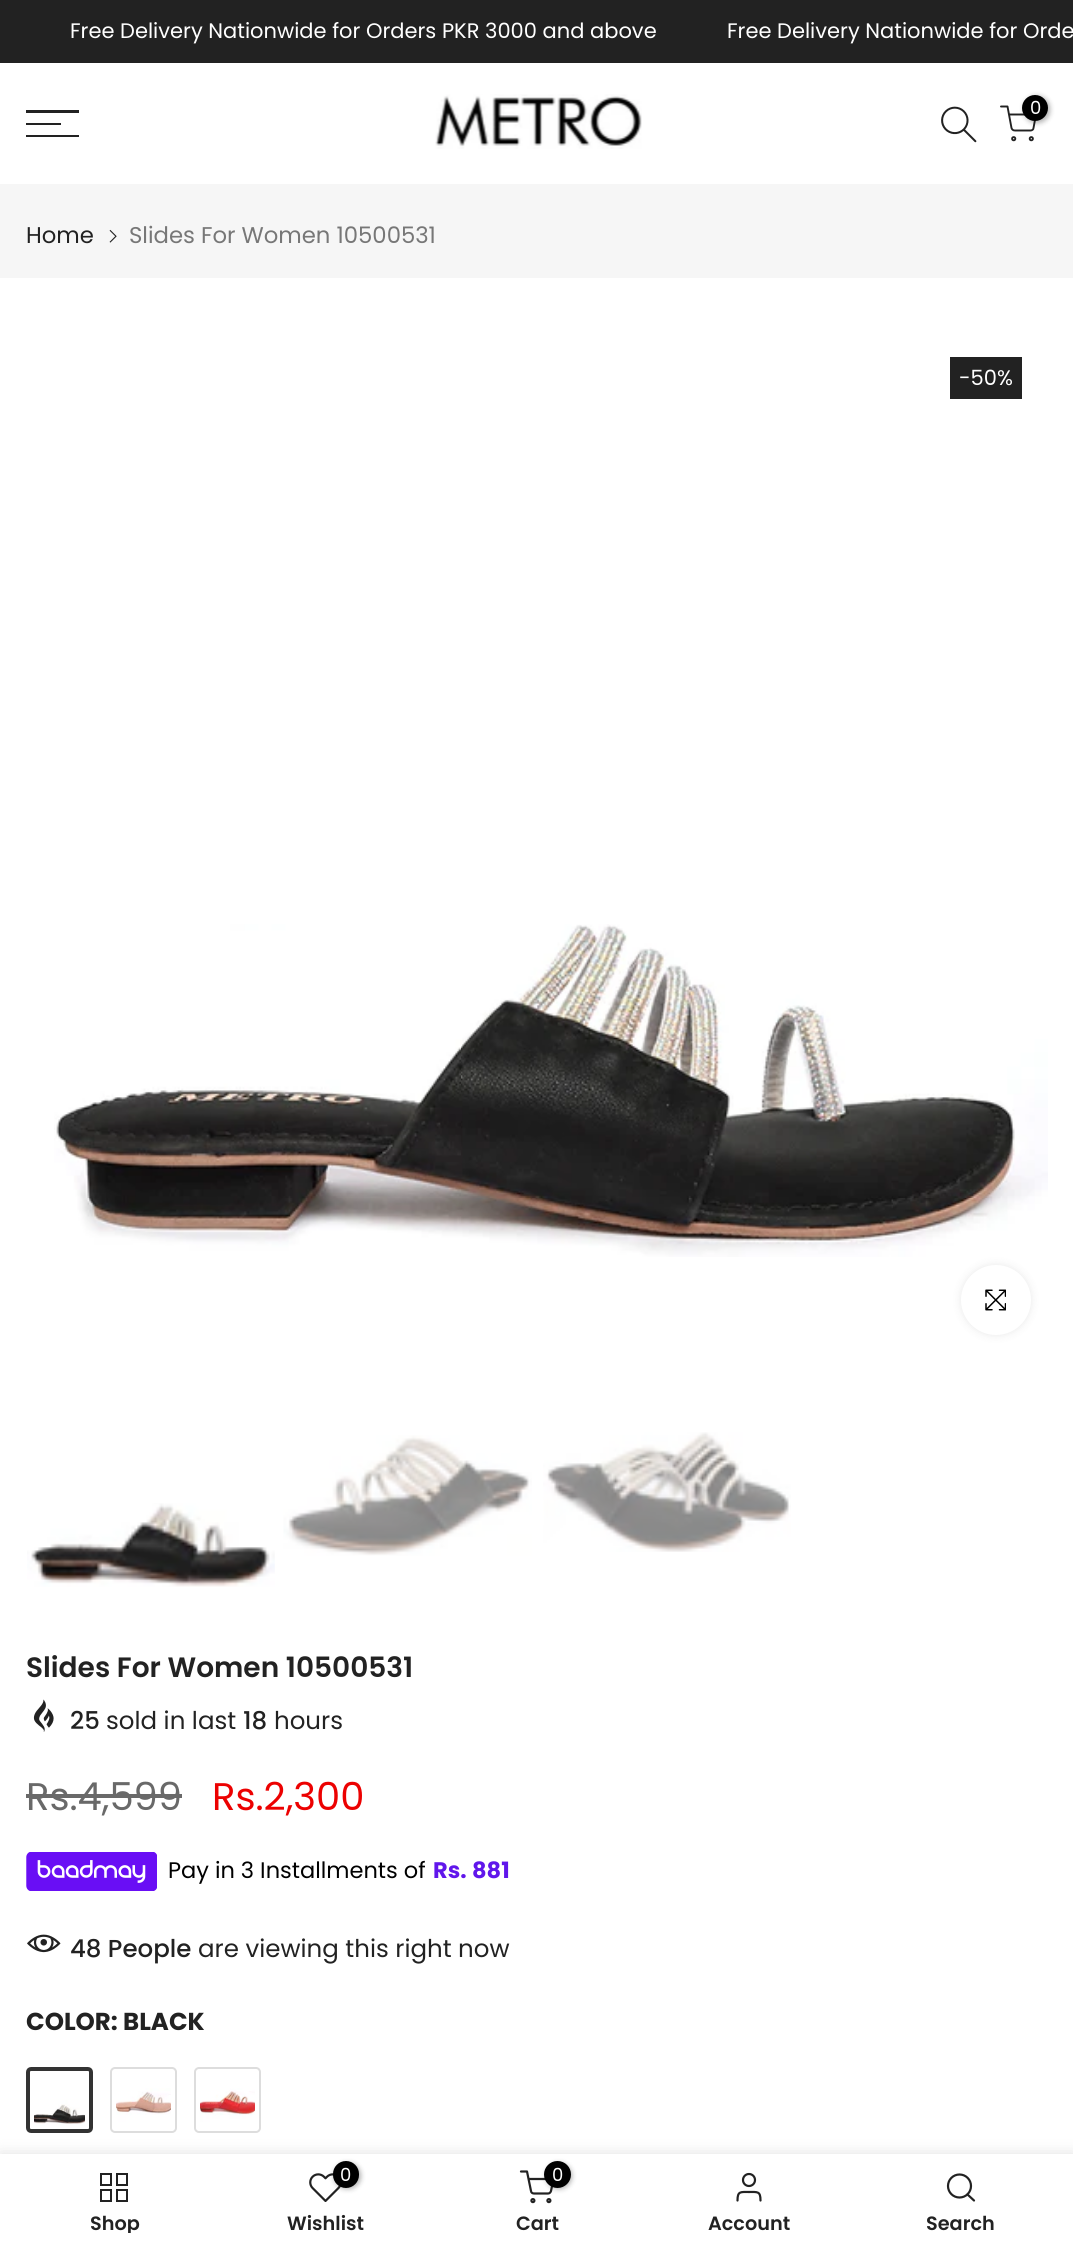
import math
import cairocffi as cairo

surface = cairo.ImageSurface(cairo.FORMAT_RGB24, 1073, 2250)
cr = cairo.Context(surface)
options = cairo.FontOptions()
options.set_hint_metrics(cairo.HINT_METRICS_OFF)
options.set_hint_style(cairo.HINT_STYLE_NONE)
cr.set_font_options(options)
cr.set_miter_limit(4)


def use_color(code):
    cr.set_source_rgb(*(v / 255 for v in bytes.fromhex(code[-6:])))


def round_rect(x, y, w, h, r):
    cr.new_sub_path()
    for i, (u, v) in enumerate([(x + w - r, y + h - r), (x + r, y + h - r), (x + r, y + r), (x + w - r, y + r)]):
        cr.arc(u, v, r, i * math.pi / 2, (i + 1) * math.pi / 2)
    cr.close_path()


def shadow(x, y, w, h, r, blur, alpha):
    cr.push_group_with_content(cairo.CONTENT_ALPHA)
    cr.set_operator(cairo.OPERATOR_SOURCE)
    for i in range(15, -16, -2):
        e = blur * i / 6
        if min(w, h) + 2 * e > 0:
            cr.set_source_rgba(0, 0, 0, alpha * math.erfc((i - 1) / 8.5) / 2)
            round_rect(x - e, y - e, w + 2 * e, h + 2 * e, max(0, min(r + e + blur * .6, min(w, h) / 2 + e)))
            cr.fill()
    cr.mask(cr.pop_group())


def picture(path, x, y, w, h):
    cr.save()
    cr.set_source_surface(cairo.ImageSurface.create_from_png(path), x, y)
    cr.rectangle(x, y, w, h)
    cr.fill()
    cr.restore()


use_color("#ffffff")
cr.paint()
use_color("#222222")
cr.rectangle(0, 0, 1073, 63)
cr.fill()
cr.select_font_face("Poppins")
cr.set_font_size(21)
use_color("#ffffff")
cr.move_to(70, 38)
cr.show_text("Free Delivery Nationwide for Orders PKR 3000 and above")
cr.move_to(727, 38)
cr.show_text("Free Delivery Nationwide for Orde")
picture("img1.png", 435, 94, 207, 55)
picture("img2.png", 941, 106, 36, 37)
cr.new_path()
cr.move_to(1001, 106.5)
cr.line_to(1007.5, 106.5)
cr.line_to(1011.5, 128)
cr.curve_to(1012, 129.5, 1013, 130.5, 1015, 130.5)
cr.line_to(1030.5, 130.5)
cr.curve_to(1032, 130.5, 1033.5, 129.5, 1033.5, 128)
cr.line_to(1036, 114.5)
cr.line_to(1009, 114.5)
use_color("#222222")
cr.set_line_width(1.9)
cr.set_line_cap(cairo.LINE_CAP_ROUND)
cr.set_line_join(cairo.LINE_JOIN_ROUND)
cr.stroke()
use_color("#000000")
shadow(1024, 96, 26, 27, 13, 2.5, 0.3)
use_color("#000000")
cr.arc(1035, 108, 13, 0, 2 * math.pi)
cr.fill()
cr.set_font_size(18)
use_color("#ffffff")
cr.move_to(1030, 114)
cr.show_text("0")
cr.new_path()
cr.arc(1013.7, 138.7, 1.6, 0, 2 * math.pi)
use_color("#222222")
cr.set_line_cap(cairo.LINE_CAP_BUTT)
cr.set_line_join(cairo.LINE_JOIN_MITER)
cr.stroke()
cr.arc(1031.3, 138.7, 1.6, 0, 2 * math.pi)
cr.stroke()
cr.rectangle(26, 110, 53, 3)
cr.fill()
cr.rectangle(26, 123, 35, 2)
cr.fill()
cr.rectangle(26, 135, 53, 2)
cr.fill()
use_color("#f6f6f6")
cr.rectangle(0, 184, 1073, 94)
cr.fill()
cr.set_font_size(22.75)
use_color("#222222")
cr.move_to(26, 243)
cr.show_text("Home")
picture("img3.png", 109, 229, 8, 14)
use_color("#777777")
cr.move_to(129, 243)
cr.show_text("Slides For Women 10500531")
use_color("#222222")
cr.rectangle(950, 357, 72, 42)
cr.fill()
cr.set_font_size(21)
use_color("#ffffff")
cr.move_to(959, 385)
cr.show_text("-50%")
picture("img4.png", 54, 924, 994, 333)
use_color("#000000")
shadow(961, 1265, 70, 70, 35, 4.5, 0.09)
use_color("#ffffff")
cr.arc(996, 1300, 35, 0, 2 * math.pi)
cr.fill()
picture("img5.png", 985, 1289, 21, 22)
picture("img6.png", 27, 1503, 248, 84)
picture("img7.png", 283, 1435, 249, 121)
picture("img8.png", 543, 1432, 248, 120)
cr.select_font_face("Poppins SemiBold")
cr.set_font_size(28)
use_color("#222222")
cr.move_to(26, 1677)
cr.show_text("Slides For Women 10500531")
picture("img9.png", 33, 1699, 21, 33)
cr.select_font_face("Poppins Medium")
cr.set_font_size(24.5)
cr.move_to(70, 1729)
cr.show_text("25")
cr.select_font_face("Poppins")
cr.move_to(106, 1729)
cr.show_text("sold in last")
cr.select_font_face("Poppins Medium")
cr.move_to(243, 1729)
cr.show_text("18")
cr.select_font_face("Poppins")
cr.move_to(274, 1729)
cr.show_text("hours")
cr.set_font_size(38.5)
use_color("#696969")
cr.move_to(26, 1810)
cr.show_text("Rs.4,599")
cr.rectangle(26, 1794, 156, 4)
cr.fill()
use_color("#ec0101")
cr.move_to(212, 1810)
cr.show_text("Rs.2,300")
picture("img10.png", 26, 1852, 131, 39)
cr.set_font_size(22.5)
use_color("#000000")
cr.move_to(168, 1878)
cr.show_text("Pay in 3 Installments of")
cr.select_font_face("Poppins", cairo.FONT_SLANT_NORMAL, cairo.FONT_WEIGHT_BOLD)
use_color("#6016eb")
cr.move_to(433, 1878)
cr.show_text("Rs.")
cr.move_to(472, 1878)
cr.show_text("881")
picture("img11.png", 27, 1934, 34, 19)
cr.select_font_face("Poppins Medium")
cr.set_font_size(24.5)
use_color("#222222")
cr.move_to(70, 1957)
cr.show_text("48 People")
cr.select_font_face("Poppins")
cr.move_to(198, 1957)
cr.show_text("are viewing this right now")
cr.select_font_face("Poppins", cairo.FONT_SLANT_NORMAL, cairo.FONT_WEIGHT_BOLD)
cr.move_to(26, 2030)
cr.show_text("COLOR: BLACK")
picture("img12.png", 30, 2071, 59, 58)
cr.rectangle(32, 2072, 55, 56)
use_color("#ffffff")
cr.set_line_width(4)
cr.stroke()
round_rect(28, 2069, 63, 62, 3)
use_color("#333333")
cr.stroke()
picture("img13.png", 112, 2069, 63, 62)
round_rect(114, 2071, 59, 59, 2)
use_color("#ffffff")
cr.stroke()
round_rect(111, 2068, 65, 64, 4)
use_color("#dddddd")
cr.set_line_width(2)
cr.stroke()
picture("img14.png", 196, 2069, 63, 62)
round_rect(198, 2071, 59, 59, 2)
use_color("#ffffff")
cr.set_line_width(4)
cr.stroke()
round_rect(195, 2068, 65, 64, 4)
use_color("#dddddd")
cr.set_line_width(2)
cr.stroke()
use_color("#000000")
shadow(0, 2154, 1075, 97, 0, 8, 0.12)
use_color("#ffffff")
cr.rectangle(0, 2154, 1073, 96)
cr.fill()
cr.rectangle(101, 2174, 10, 11)
use_color("#222222")
cr.stroke()
cr.rectangle(117, 2174, 10, 11)
cr.stroke()
cr.rectangle(101, 2190, 10, 11)
cr.stroke()
cr.rectangle(117, 2190, 10, 11)
cr.stroke()
cr.save()
cr.rectangle(26, 2214, 177, 19)
cr.clip()
cr.select_font_face("Poppins SemiBold")
cr.set_font_size(19.25)
cr.move_to(90, 2230)
cr.show_text("Shop")
cr.restore()
picture("img15.png", 309, 2173, 32, 29)
use_color("#000000")
shadow(334, 2163, 27, 26, 13, 2.5, 0.3)
use_color("#000000")
round_rect(333, 2161, 26, 27, 13)
cr.fill()
cr.select_font_face("Poppins")
cr.set_font_size(18)
use_color("#ffffff")
cr.move_to(340, 2181)
cr.show_text("0")
cr.select_font_face("Poppins SemiBold")
cr.set_font_size(19.25)
use_color("#222222")
cr.move_to(287, 2230)
cr.show_text("Wishlist")
cr.new_path()
cr.move_to(521, 2171.5)
cr.line_to(527, 2171.5)
cr.line_to(531, 2191)
cr.curve_to(531, 2192.5, 532.5, 2193.5, 534, 2193.5)
cr.line_to(548, 2193.5)
cr.curve_to(549.5, 2193.5, 550.5, 2192.5, 551, 2191)
cr.line_to(553.5, 2179)
cr.line_to(528.5, 2179)
cr.set_line_width(2.2)
cr.set_line_cap(cairo.LINE_CAP_ROUND)
cr.set_line_join(cairo.LINE_JOIN_ROUND)
cr.stroke()
use_color("#000000")
shadow(546, 2163, 26, 26, 13, 2.5, 0.3)
use_color("#000000")
cr.arc(557.5, 2174.5, 13.5, 0, 2 * math.pi)
cr.fill()
cr.select_font_face("Poppins")
cr.set_font_size(18)
use_color("#ffffff")
cr.move_to(552, 2181)
cr.show_text("0")
cr.new_path()
cr.arc(532.9, 2200.6, 1.5, 0, 2 * math.pi)
use_color("#222222")
cr.set_line_cap(cairo.LINE_CAP_BUTT)
cr.set_line_join(cairo.LINE_JOIN_MITER)
cr.stroke()
cr.arc(548.9, 2200.6, 1.5, 0, 2 * math.pi)
cr.stroke()
cr.select_font_face("Poppins SemiBold")
cr.set_font_size(19.25)
cr.move_to(516, 2230)
cr.show_text("Cart")
cr.new_path()
cr.arc(749, 2180, 6, 0, 2 * math.pi)
cr.stroke()
cr.new_path()
cr.move_to(760.5, 2200.5)
cr.curve_to(760.5, 2191, 757.5, 2192, 749, 2192)
cr.curve_to(740.5, 2192, 737.5, 2191, 737.5, 2200.5)
cr.set_line_cap(cairo.LINE_CAP_ROUND)
cr.set_line_join(cairo.LINE_JOIN_ROUND)
cr.stroke()
cr.move_to(708, 2230)
cr.show_text("Account")
cr.new_path()
cr.arc(959.5, 2186, 11.5, 0, 2 * math.pi)
cr.set_line_cap(cairo.LINE_CAP_BUTT)
cr.set_line_join(cairo.LINE_JOIN_MITER)
cr.stroke()
cr.new_path()
cr.move_to(974, 2200.5)
cr.line_to(967.5, 2194.5)
cr.set_line_cap(cairo.LINE_CAP_ROUND)
cr.set_line_join(cairo.LINE_JOIN_ROUND)
cr.stroke()
cr.move_to(926, 2230)
cr.show_text("Search")
surface.write_to_png("result.png")
